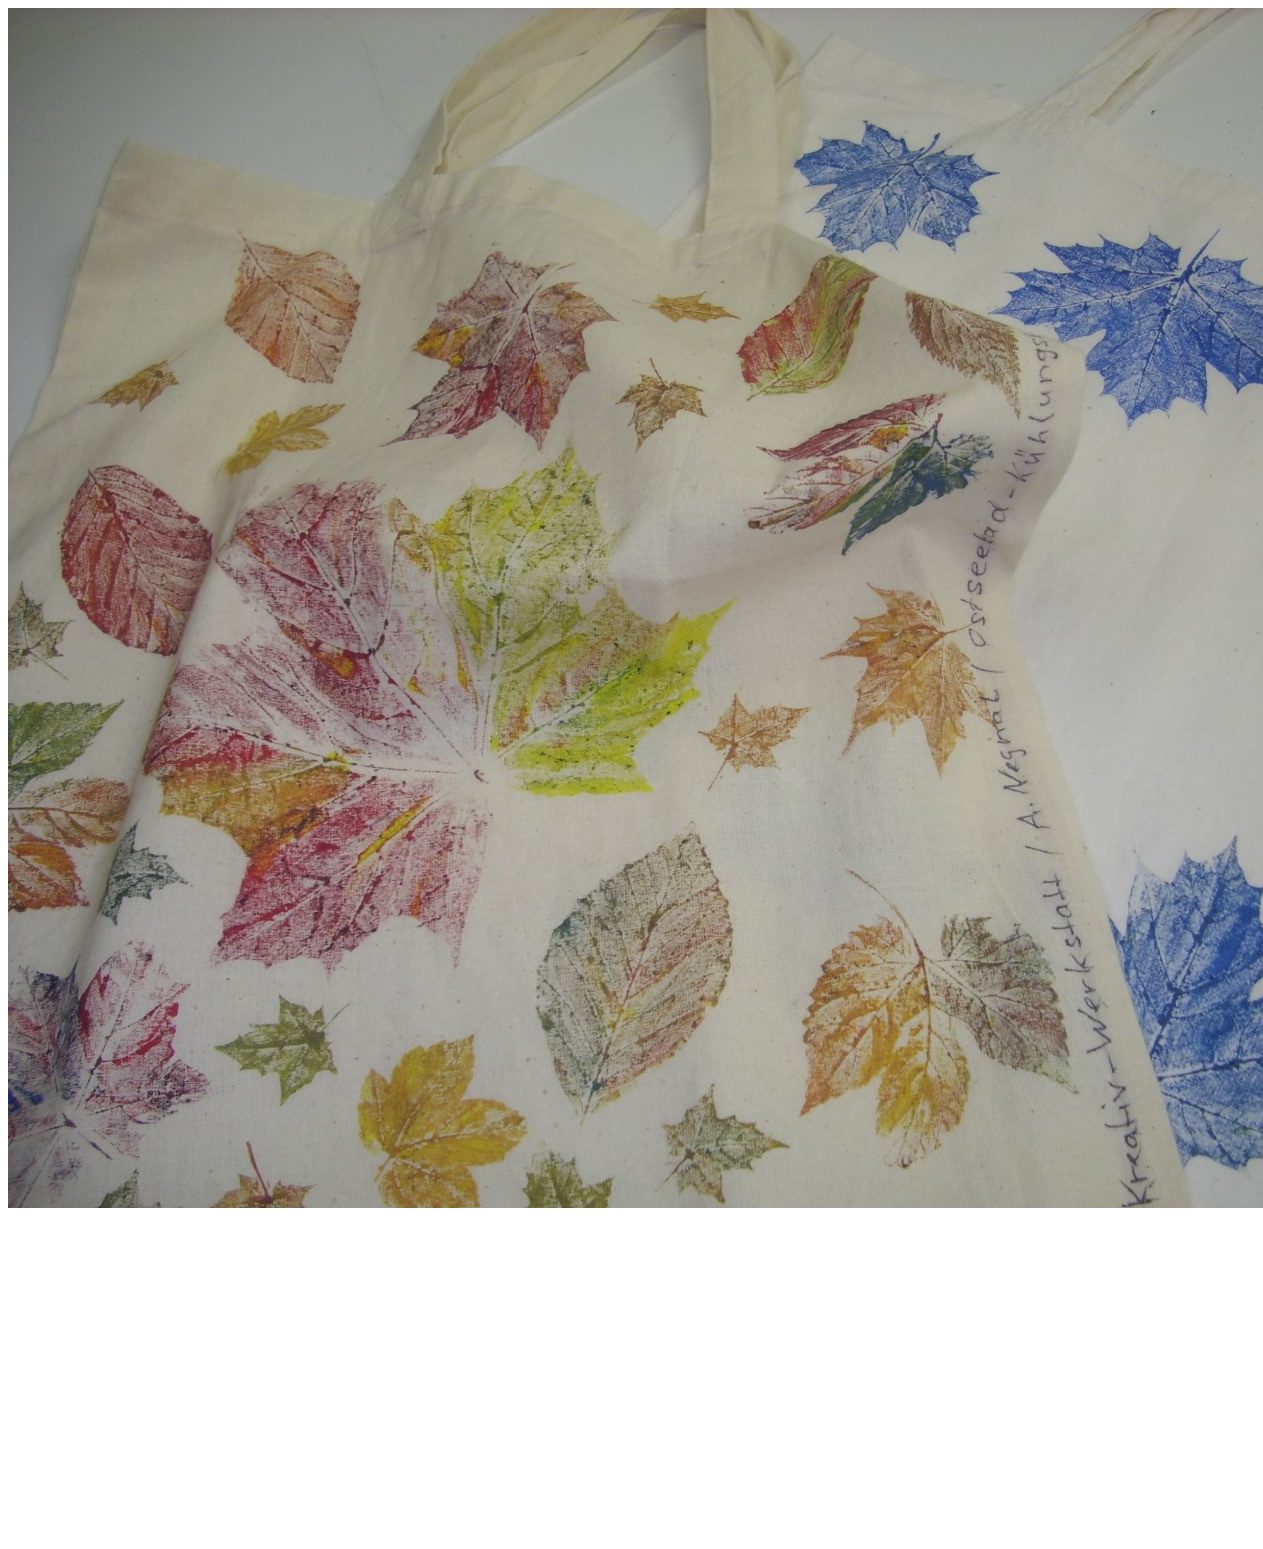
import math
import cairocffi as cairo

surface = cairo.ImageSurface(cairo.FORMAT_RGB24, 1263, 1549)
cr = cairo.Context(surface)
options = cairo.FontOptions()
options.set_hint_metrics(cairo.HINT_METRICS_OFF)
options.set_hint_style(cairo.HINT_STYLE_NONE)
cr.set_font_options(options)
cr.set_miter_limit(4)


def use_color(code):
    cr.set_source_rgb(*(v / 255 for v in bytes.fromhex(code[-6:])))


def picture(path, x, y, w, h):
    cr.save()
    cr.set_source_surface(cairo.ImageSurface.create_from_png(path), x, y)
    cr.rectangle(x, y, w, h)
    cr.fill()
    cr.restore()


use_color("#ffffff")
cr.paint()
picture("img1.png", 8, 8, 1255, 1200)
surface.write_to_png("result.png")
